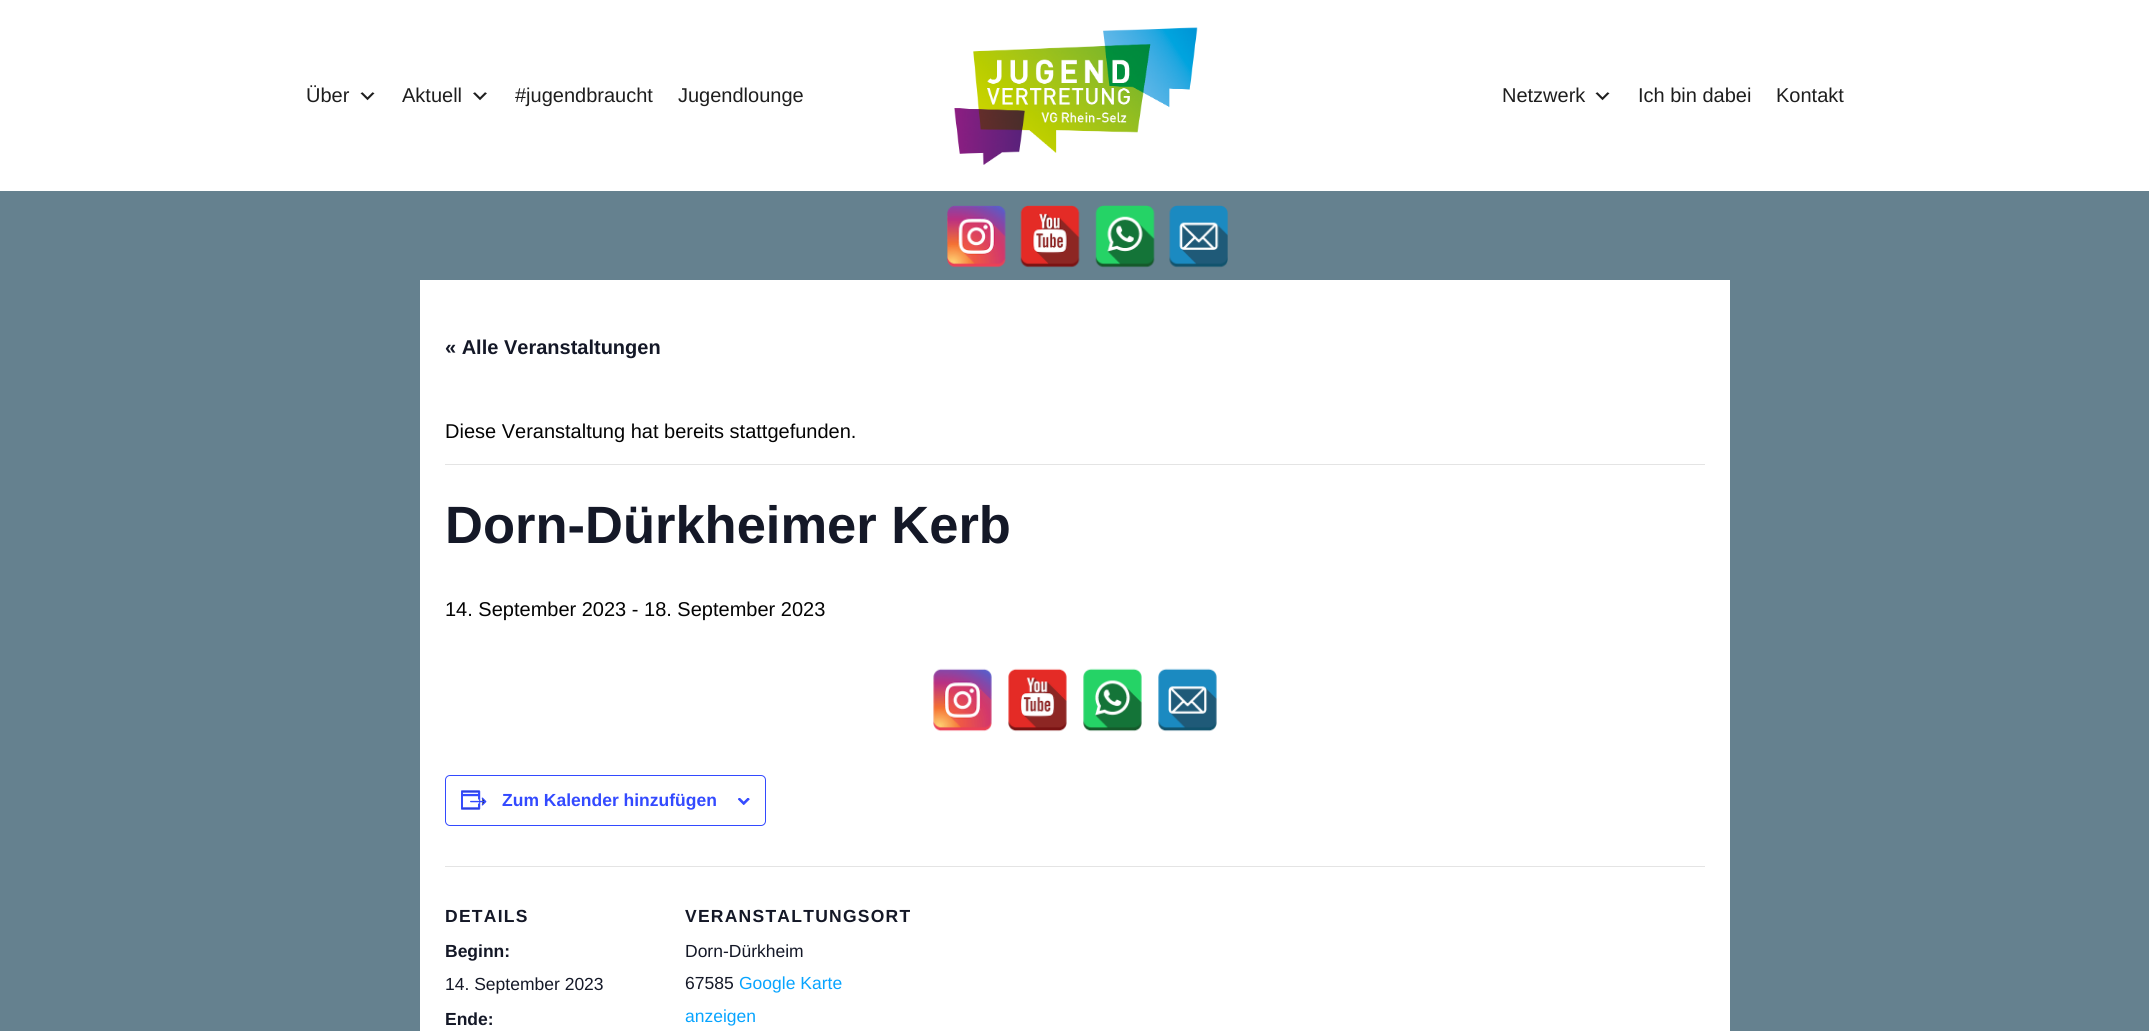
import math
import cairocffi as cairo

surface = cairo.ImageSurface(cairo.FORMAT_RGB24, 2149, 1031)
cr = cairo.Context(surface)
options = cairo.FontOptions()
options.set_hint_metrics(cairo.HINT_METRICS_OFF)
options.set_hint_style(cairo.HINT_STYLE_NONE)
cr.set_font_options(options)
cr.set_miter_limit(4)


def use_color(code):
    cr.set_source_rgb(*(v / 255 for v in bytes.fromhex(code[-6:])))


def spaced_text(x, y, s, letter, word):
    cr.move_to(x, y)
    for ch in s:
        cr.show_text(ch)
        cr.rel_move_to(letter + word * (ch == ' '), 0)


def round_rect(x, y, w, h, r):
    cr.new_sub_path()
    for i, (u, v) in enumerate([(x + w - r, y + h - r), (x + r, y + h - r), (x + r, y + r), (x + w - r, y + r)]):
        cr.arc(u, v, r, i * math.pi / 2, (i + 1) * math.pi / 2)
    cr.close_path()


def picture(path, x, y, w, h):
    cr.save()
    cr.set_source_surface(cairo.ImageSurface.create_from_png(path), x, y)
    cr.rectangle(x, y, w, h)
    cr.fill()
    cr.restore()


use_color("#65818f")
cr.paint()
use_color("#ffffff")
cr.rectangle(0, 0, 2149, 191)
cr.fill()
cr.select_font_face("Liberation Sans")
cr.set_font_size(20)
use_color("#1e1e1e")
cr.move_to(306, 102)
cr.show_text("Über")
picture("img1.png", 360, 92, 15, 9)
cr.move_to(402, 102)
cr.show_text("Aktuell")
picture("img2.png", 473, 92, 14, 9)
cr.move_to(515, 102)
cr.show_text("#jugendbraucht")
cr.move_to(678, 102)
cr.show_text("Jugendlounge")
picture("img3.png", 954, 27, 244, 138)
cr.move_to(1502, 102)
cr.show_text("Netzwerk")
picture("img1.png", 1595, 92, 15, 9)
cr.move_to(1638, 102)
cr.show_text("Ich bin dabei")
cr.move_to(1776, 102)
cr.show_text("Kontakt")
picture("img4.png", 947, 205, 59, 63)
picture("img5.png", 1020, 205, 60, 63)
picture("img6.png", 1095, 205, 60, 63)
picture("img7.png", 1169, 205, 59, 63)
use_color("#ffffff")
cr.rectangle(420, 280, 1310, 751)
cr.fill()
cr.select_font_face("Liberation Sans", cairo.FONT_SLANT_NORMAL, cairo.FONT_WEIGHT_BOLD)
use_color("#141827")
cr.move_to(445, 354)
cr.show_text("« Alle Veranstaltungen")
use_color("#e4e4e4")
cr.rectangle(445, 464, 1260, 1)
cr.fill()
cr.select_font_face("Liberation Sans")
use_color("#030303")
cr.move_to(445, 438)
cr.show_text("Diese Veranstaltung hat bereits stattgefunden.")
cr.select_font_face("Liberation Sans", cairo.FONT_SLANT_NORMAL, cairo.FONT_WEIGHT_BOLD)
cr.set_font_size(52.5)
use_color("#141827")
cr.move_to(445, 543)
cr.show_text("Dorn-Dürkheimer Kerb")
cr.select_font_face("Liberation Sans")
cr.set_font_size(20)
use_color("#030303")
cr.move_to(445, 616)
cr.show_text("14. September 2023 - 18. September 2023")
picture("img8.png", 933, 668, 59, 64)
picture("img9.png", 1008, 668, 59, 64)
picture("img10.png", 1083, 668, 59, 64)
picture("img11.png", 1158, 668, 59, 64)
round_rect(445.5, 775.5, 320, 50, 4.5)
use_color("#334aff")
cr.set_line_width(1)
cr.stroke()
picture("img12.png", 461, 790, 26, 20)
cr.select_font_face("Liberation Sans", cairo.FONT_SLANT_NORMAL, cairo.FONT_WEIGHT_BOLD)
cr.set_font_size(17.5)
cr.move_to(502, 806)
cr.show_text("Zum Kalender hinzufügen")
picture("img13.png", 738, 798, 12, 7)
use_color("#e4e4e4")
cr.rectangle(445, 866, 1260, 1)
cr.fill()
use_color("#141827")
spaced_text(445, 922, "DETAILS", 1.25, 0)
cr.move_to(445, 957)
cr.show_text("Beginn:")
cr.select_font_face("Liberation Sans")
cr.move_to(445, 990)
cr.show_text("14. September 2023")
cr.select_font_face("Liberation Sans", cairo.FONT_SLANT_NORMAL, cairo.FONT_WEIGHT_BOLD)
cr.move_to(445, 1025)
cr.show_text("Ende:")
spaced_text(685, 922, "VERANSTALTUNGSORT", 1.25, 0)
cr.select_font_face("Liberation Sans")
cr.move_to(685, 957)
cr.show_text("Dorn-Dürkheim")
cr.move_to(685, 989)
cr.show_text("67585")
use_color("#07a4ff")
cr.move_to(739, 989)
cr.show_text("Google Karte")
cr.move_to(685, 1022)
cr.show_text("anzeigen")
surface.write_to_png("result.png")
